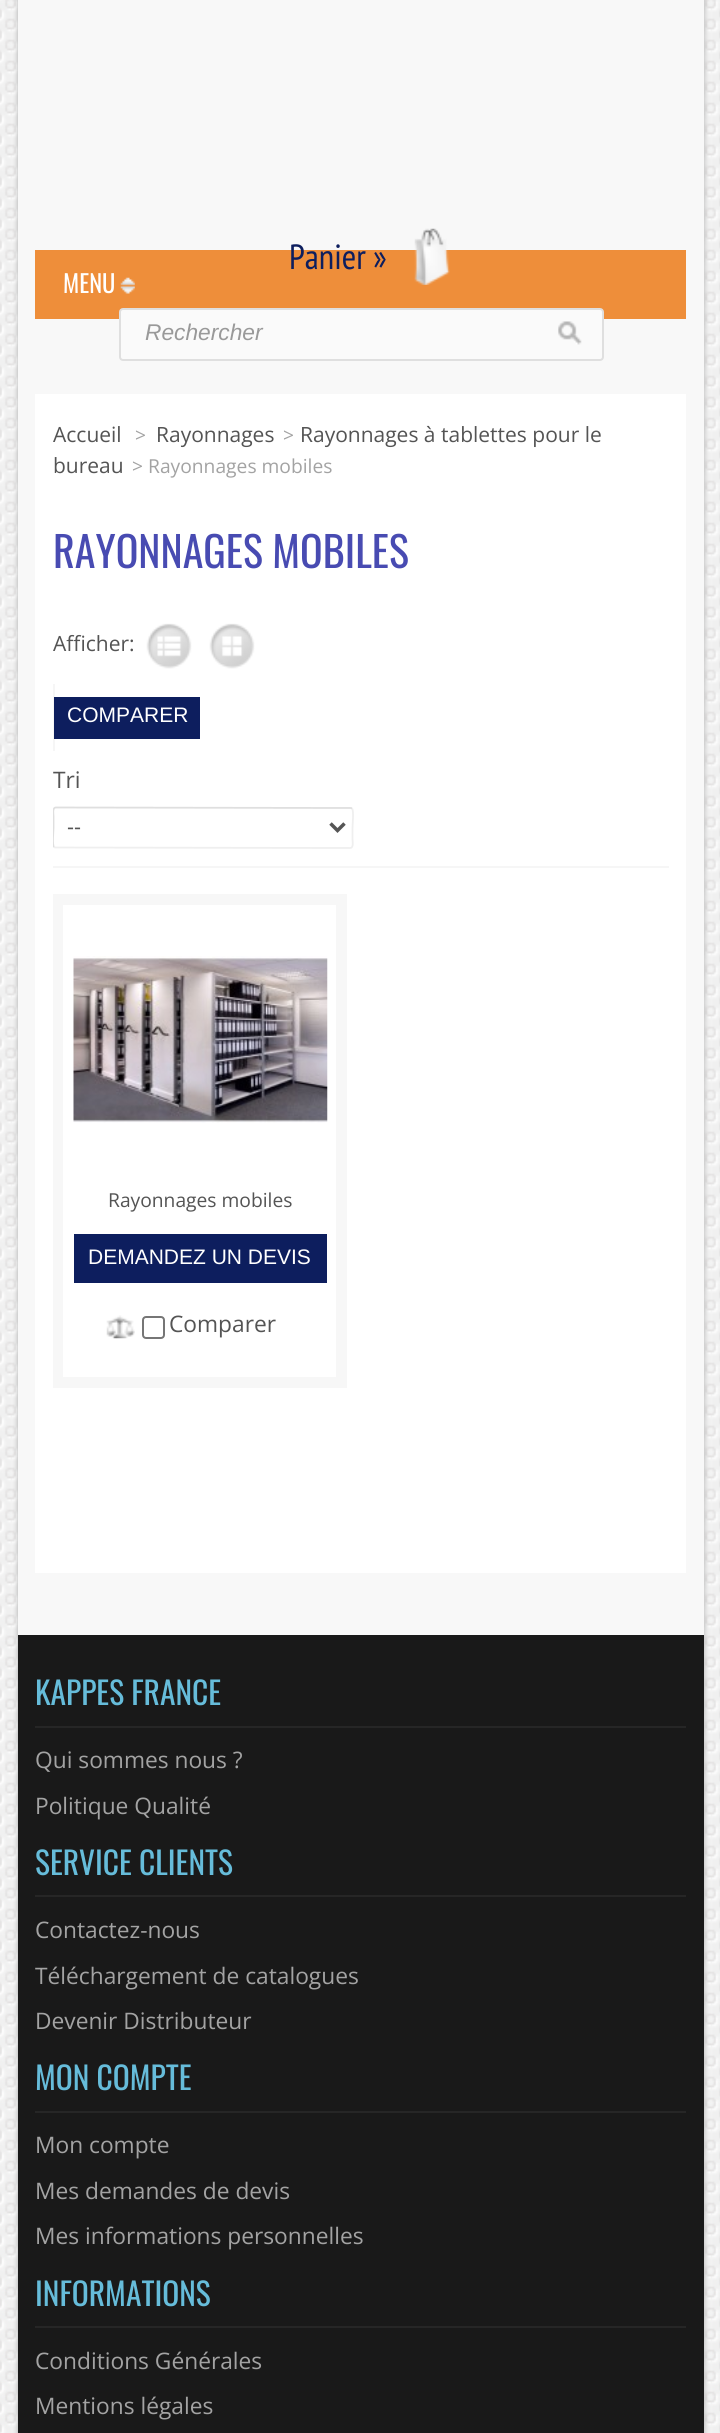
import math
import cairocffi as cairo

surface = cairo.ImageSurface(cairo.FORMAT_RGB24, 720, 2433)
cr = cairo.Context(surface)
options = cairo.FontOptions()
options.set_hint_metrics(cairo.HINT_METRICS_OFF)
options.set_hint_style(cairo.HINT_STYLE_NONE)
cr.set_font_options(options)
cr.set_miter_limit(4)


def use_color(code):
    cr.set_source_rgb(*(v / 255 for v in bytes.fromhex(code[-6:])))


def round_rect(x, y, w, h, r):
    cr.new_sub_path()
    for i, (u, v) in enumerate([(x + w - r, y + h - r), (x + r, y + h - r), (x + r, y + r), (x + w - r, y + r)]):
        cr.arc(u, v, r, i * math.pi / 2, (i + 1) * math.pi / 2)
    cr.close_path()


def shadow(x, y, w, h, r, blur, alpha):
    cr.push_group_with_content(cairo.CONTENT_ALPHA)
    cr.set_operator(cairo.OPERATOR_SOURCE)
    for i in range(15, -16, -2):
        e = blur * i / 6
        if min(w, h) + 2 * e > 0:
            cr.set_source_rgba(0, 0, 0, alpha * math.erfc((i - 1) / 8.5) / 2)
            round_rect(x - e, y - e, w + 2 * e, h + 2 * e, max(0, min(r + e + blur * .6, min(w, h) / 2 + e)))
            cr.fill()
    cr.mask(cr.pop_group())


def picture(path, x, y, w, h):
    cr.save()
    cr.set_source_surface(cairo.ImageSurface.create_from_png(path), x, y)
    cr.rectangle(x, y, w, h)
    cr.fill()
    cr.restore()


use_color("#ffffff")
cr.paint()
picture("img1.png", 0, 0, 720, 2433)
use_color("#000000")
shadow(18, -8, 686, 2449, 0, 2.5, 0.3)
use_color("#f8f8f8")
cr.rectangle(18, 0, 686, 1635)
cr.fill()
use_color("#ee8e3a")
cr.rectangle(35, 250, 651, 69)
cr.fill()
cr.select_font_face("Oswald")
cr.set_font_size(24.5)
use_color("#ffffff")
cr.move_to(63, 293)
cr.show_text("MENU")
picture("img2.png", 120, 277, 15, 17)
cr.select_font_face("PT Sans Narrow")
cr.set_font_size(35)
use_color("#0d1e5e")
cr.move_to(289, 269)
cr.show_text("Panier »")
picture("img3.png", 414, 228, 36, 57)
use_color("#fafafa")
round_rect(120, 309, 483, 51, 3)
cr.fill_preserve()
use_color("#dfdfdf")
cr.stroke()
cr.select_font_face("Liberation Sans", cairo.FONT_SLANT_ITALIC)
cr.set_font_size(22.75)
use_color("#999999")
cr.move_to(145, 340)
cr.show_text("Rechercher")
picture("img4.png", 558, 321, 24, 24)
use_color("#ffffff")
cr.rectangle(35, 394, 651, 1179)
cr.fill()
cr.select_font_face("Open Sans")
cr.set_font_size(21)
use_color("#545454")
cr.move_to(53, 442)
cr.show_text("Accueil")
cr.set_font_size(19.25)
use_color("#a3a3a3")
cr.move_to(135, 442)
cr.show_text(">")
cr.set_font_size(21)
use_color("#545454")
cr.move_to(156, 442)
cr.show_text("Rayonnages")
cr.set_font_size(19.25)
use_color("#a3a3a3")
cr.move_to(283, 442)
cr.show_text(">")
cr.set_font_size(21)
use_color("#545454")
cr.move_to(300, 442)
cr.show_text("Rayonnages à tablettes pour le")
cr.move_to(53, 473)
cr.show_text("bureau")
cr.set_font_size(19.25)
use_color("#a3a3a3")
cr.move_to(132, 473)
cr.show_text("> Rayonnages mobiles")
cr.select_font_face("Oswald")
cr.set_font_size(42)
use_color("#484bb2")
cr.move_to(53, 568)
cr.show_text("RAYONNAGES MOBILES")
use_color("#f6f6f6")
cr.rectangle(53, 866, 616, 2)
cr.fill()
cr.select_font_face("Open Sans")
cr.set_font_size(21)
use_color("#545454")
cr.move_to(53, 651)
cr.show_text("Afficher:")
picture("img5.png", 146, 623, 46, 46)
picture("img6.png", 209, 623, 46, 46)
use_color("#f6f6f6")
cr.rectangle(53, 684, 2, 67)
cr.fill()
use_color("#0d1e5e")
cr.rectangle(54, 697, 146, 42)
cr.fill()
cr.select_font_face("Liberation Sans")
use_color("#ffffff")
cr.move_to(67, 722)
cr.show_text("COMPARER")
cr.save()
cr.rectangle(53, 606, 616, 260)
cr.clip()
cr.select_font_face("Open Sans")
cr.set_font_size(22.75)
use_color("#545454")
cr.move_to(53, 788)
cr.show_text("Tri")
cr.restore()
cr.new_path()
cr.move_to(352, 808.5)
cr.curve_to(354, 810.5, 352.5, 824.5, 352.5, 828)
cr.line_to(352.5, 839.5)
cr.curve_to(352.5, 841, 354, 848, 350, 848)
cr.line_to(55, 847.5)
cr.line_to(54, 847)
use_color("#efefef")
cr.set_line_width(1.8)
cr.stroke()
cr.save()
cr.rectangle(53, 606, 616, 260)
cr.clip()
cr.new_path()
cr.move_to(54, 847)
cr.curve_to(52, 845, 53.5, 831, 53.5, 828)
cr.line_to(53.5, 816)
cr.curve_to(53.5, 814.5, 52, 807.5, 56, 807.5)
cr.line_to(351, 808)
cr.line_to(352, 808.5)
use_color("#dfdfdf")
cr.stroke()
cr.restore()
cr.new_path()
cr.move_to(330.5, 823.5)
cr.line_to(337.5, 830.5)
cr.line_to(344.5, 823.5)
use_color("#555555")
cr.set_line_width(3.5)
cr.stroke()
use_color("#545454")
cr.move_to(67, 834)
cr.show_text("--")
use_color("#f7f7f7")
cr.rectangle(53, 894, 294, 494)
cr.fill()
use_color("#ffffff")
cr.rectangle(63, 905, 273, 472)
cr.fill()
picture("img7.png", 73, 956, 255, 167)
cr.select_font_face("Open Sans")
cr.set_font_size(19.25)
use_color("#545454")
cr.move_to(108, 1207)
cr.show_text("Rayonnages mobiles")
use_color("#0d1e5e")
cr.rectangle(74, 1234, 253, 49)
cr.fill()
cr.select_font_face("Liberation Sans")
cr.set_font_size(21)
use_color("#ffffff")
cr.move_to(88, 1264)
cr.show_text("DEMANDEZ UN DEVIS")
picture("img8.png", 106, 1315, 29, 24)
round_rect(143, 1317, 21, 21, 3)
use_color("#767676")
cr.set_line_width(2)
cr.stroke()
cr.select_font_face("Open Sans")
cr.set_font_size(22.75)
use_color("#545454")
cr.move_to(169, 1332)
cr.show_text("Comparer")
use_color("#191919")
cr.rectangle(18, 1635, 686, 798)
cr.fill()
use_color("#262626")
cr.rectangle(35, 1726, 651, 2)
cr.fill()
cr.select_font_face("Oswald")
cr.set_font_size(31.5)
use_color("#66bcda")
cr.move_to(35, 1705)
cr.show_text("KAPPES FRANCE")
cr.select_font_face("Open Sans")
cr.set_font_size(22.75)
use_color("#a3a3a3")
cr.move_to(35, 1768)
cr.show_text("Qui sommes nous ?")
cr.move_to(35, 1814)
cr.show_text("Politique Qualité")
use_color("#262626")
cr.rectangle(35, 1895, 651, 2)
cr.fill()
cr.select_font_face("Oswald")
cr.set_font_size(31.5)
use_color("#66bcda")
cr.move_to(35, 1875)
cr.show_text("SERVICE CLIENTS")
cr.select_font_face("Open Sans")
cr.set_font_size(22.75)
use_color("#a3a3a3")
cr.move_to(35, 1938)
cr.show_text("Contactez-nous")
cr.move_to(35, 1984)
cr.show_text("Téléchargement de catalogues")
cr.move_to(35, 2029)
cr.show_text("Devenir Distributeur")
use_color("#262626")
cr.rectangle(35, 2111, 651, 2)
cr.fill()
cr.select_font_face("Oswald")
cr.set_font_size(31.5)
use_color("#66bcda")
cr.move_to(35, 2090)
cr.show_text("MON COMPTE")
cr.select_font_face("Open Sans")
cr.set_font_size(22.75)
use_color("#a3a3a3")
cr.move_to(35, 2153)
cr.show_text("Mon compte")
cr.move_to(35, 2199)
cr.show_text("Mes demandes de devis")
cr.move_to(35, 2244)
cr.show_text("Mes informations personnelles")
use_color("#262626")
cr.rectangle(35, 2326, 651, 2)
cr.fill()
cr.select_font_face("Oswald")
cr.set_font_size(31.5)
use_color("#66bcda")
cr.move_to(35, 2306)
cr.show_text("INFORMATIONS")
cr.select_font_face("Open Sans")
cr.set_font_size(22.75)
use_color("#a3a3a3")
cr.move_to(35, 2369)
cr.show_text("Conditions Générales")
cr.move_to(35, 2414)
cr.show_text("Mentions légales")
surface.write_to_png("result.png")
